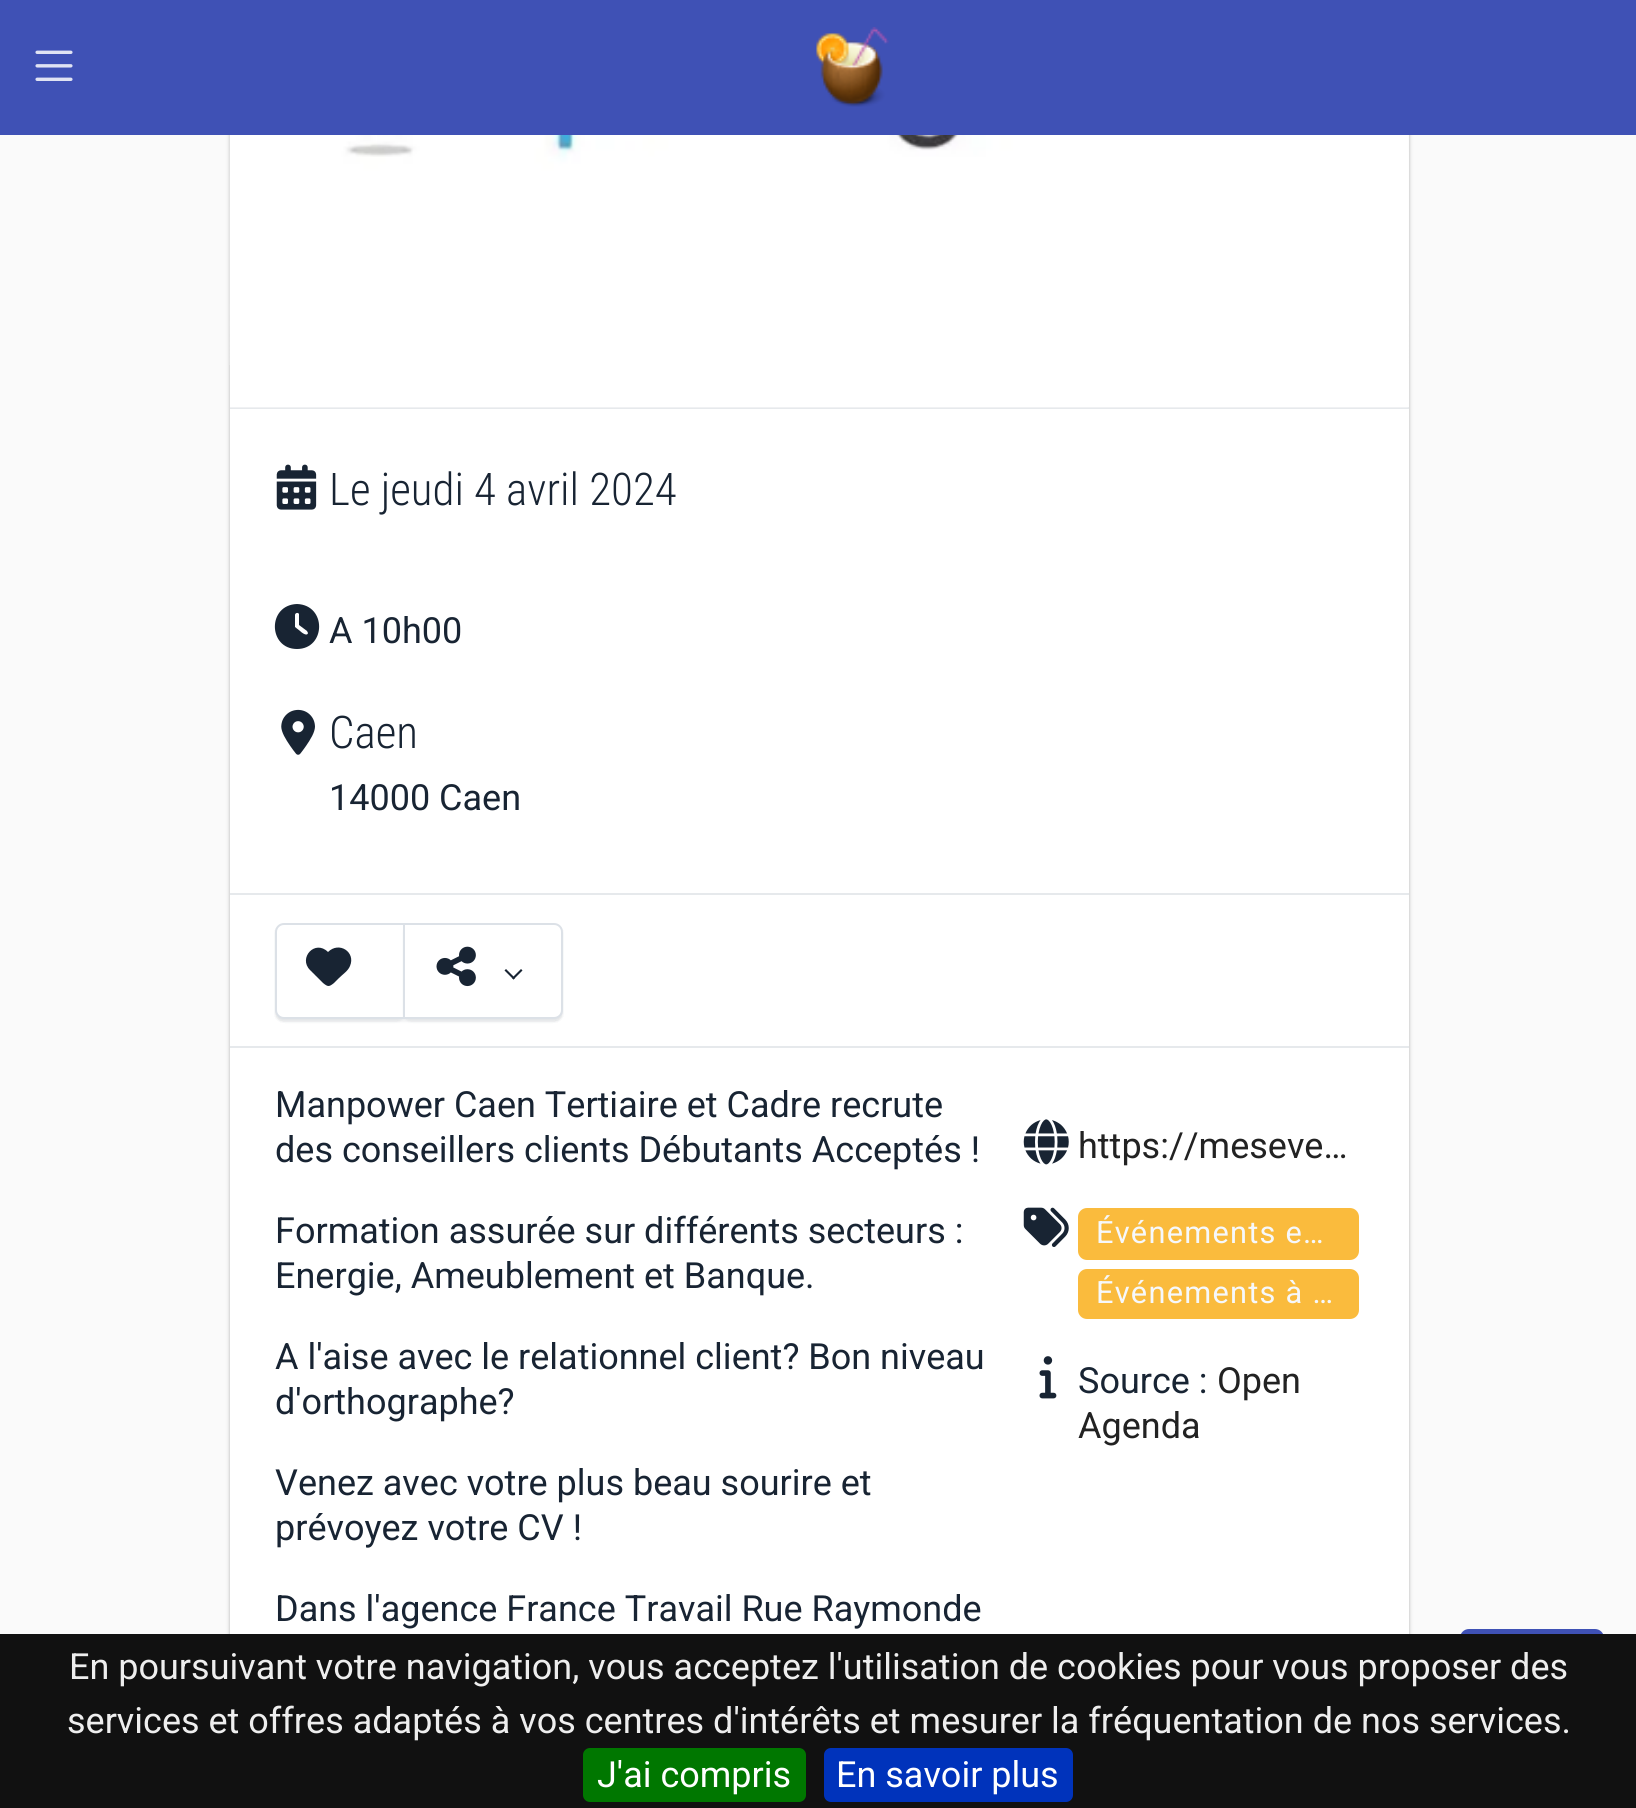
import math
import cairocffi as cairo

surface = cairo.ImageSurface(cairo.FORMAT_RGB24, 1636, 1808)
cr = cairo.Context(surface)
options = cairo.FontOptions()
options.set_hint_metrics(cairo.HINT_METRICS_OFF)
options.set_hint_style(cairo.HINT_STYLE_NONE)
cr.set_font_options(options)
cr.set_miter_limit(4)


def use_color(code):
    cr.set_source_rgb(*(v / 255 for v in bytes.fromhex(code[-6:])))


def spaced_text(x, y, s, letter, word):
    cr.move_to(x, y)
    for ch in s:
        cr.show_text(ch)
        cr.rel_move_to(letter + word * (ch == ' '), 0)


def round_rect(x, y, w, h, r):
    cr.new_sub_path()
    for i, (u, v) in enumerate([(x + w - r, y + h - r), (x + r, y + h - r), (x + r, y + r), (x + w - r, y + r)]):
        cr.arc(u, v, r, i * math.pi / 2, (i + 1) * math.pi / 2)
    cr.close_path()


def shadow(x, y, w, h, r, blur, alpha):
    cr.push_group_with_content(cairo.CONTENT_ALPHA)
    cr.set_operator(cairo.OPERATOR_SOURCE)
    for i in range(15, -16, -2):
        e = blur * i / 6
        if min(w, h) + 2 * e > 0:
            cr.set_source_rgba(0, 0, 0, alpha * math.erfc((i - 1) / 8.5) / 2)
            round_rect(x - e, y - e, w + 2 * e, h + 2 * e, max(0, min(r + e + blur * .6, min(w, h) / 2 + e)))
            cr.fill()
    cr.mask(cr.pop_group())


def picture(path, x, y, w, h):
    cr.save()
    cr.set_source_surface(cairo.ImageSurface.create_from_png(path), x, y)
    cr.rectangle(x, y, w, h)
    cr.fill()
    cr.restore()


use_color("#fafafa")
cr.paint()
use_color("#b3b3b3")
shadow(230, -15, 1179, 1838, 9, 2, 1)
use_color("#3f51b5")
cr.rectangle(0, 0, 1636, 135)
cr.fill()
picture("img1.png", 35, 50, 38, 31)
picture("img2.png", 816, 27, 73, 80)
use_color("#ffffff")
cr.rectangle(230, 135, 1179, 1499)
cr.fill()
use_color("#e6e9ec")
cr.rectangle(230, 407, 1179, 2)
cr.fill()
picture("img3.png", 229, 135, 1180, 230)
picture("img4.png", 230, 135, 1179, 273)
picture("img5.png", 276, 464, 41, 46)
cr.select_font_face("Roboto Condensed Light")
cr.set_font_size(45)
use_color("#182433")
cr.move_to(329, 505)
cr.show_text("Le jeudi 4 avril 2024")
cr.new_path()
cr.move_to(297, 604)
cr.curve_to(327, 605, 326, 649, 297, 649)
cr.curve_to(268, 649, 267, 605, 297, 604)
cr.close_path()
cr.move_to(295, 615)
cr.line_to(295, 627)
cr.line_to(300, 631)
cr.curve_to(301, 632, 307, 637, 308, 633)
cr.line_to(307, 631)
cr.line_to(299, 625)
cr.line_to(299, 614)
cr.curve_to(298, 612, 295, 613, 295, 615)
cr.close_path()
cr.fill()
cr.select_font_face("Roboto")
cr.set_font_size(36)
cr.move_to(329, 643)
cr.show_text("A 10h00")
picture("img6.png", 281, 709, 34, 46)
cr.select_font_face("Roboto Condensed Light")
cr.set_font_size(45)
cr.move_to(329, 748)
cr.show_text("Caen")
cr.select_font_face("Roboto")
cr.set_font_size(36)
cr.move_to(329, 810)
cr.show_text("14000 Caen")
use_color("#e6e9ec")
cr.rectangle(230, 893, 1179, 2)
cr.fill()
cr.rectangle(230, 1046, 1179, 2)
cr.fill()
use_color("#182433")
shadow(275, 925, 288, 97, 9, 1, 0.06)
shadow(275, 925, 130, 97, 9, 1, 0.06)
use_color("#ffffff")
cr.new_path()
cr.move_to(284, 924)
cr.line_to(404, 924)
cr.line_to(404, 1018)
cr.line_to(284, 1018)
cr.curve_to(279.5, 1018, 276, 1014.5, 276, 1010)
cr.line_to(276, 932)
cr.curve_to(276, 927.5, 279.5, 924, 284, 924)
cr.close_path()
cr.fill_preserve()
use_color("#dce1e7")
cr.stroke()
use_color("#182433")
cr.new_path()
cr.move_to(310, 970)
cr.line_to(326, 985)
cr.line_to(310, 970)
cr.line_to(323, 983)
cr.curve_to(328, 987, 329, 987, 334, 983)
cr.line_to(339, 978)
cr.curve_to(343, 974, 348, 971, 350, 966)
cr.curve_to(356, 952, 339, 941, 328, 952)
cr.curve_to(315, 939, 298, 958, 310, 970)
cr.close_path()
cr.fill()
use_color("#182433")
shadow(403, 925, 160, 97, 9, 1, 0.06)
use_color("#ffffff")
cr.new_path()
cr.move_to(404, 924)
cr.line_to(554, 924)
cr.curve_to(558.5, 924, 562, 927.5, 562, 932)
cr.line_to(562, 1010)
cr.curve_to(562, 1014.5, 558.5, 1018, 554, 1018)
cr.line_to(404, 1018)
cr.close_path()
cr.fill_preserve()
use_color("#dce1e7")
cr.stroke()
picture("img7.png", 436, 946, 40, 41)
use_color("#182433")
cr.new_path()
cr.move_to(512, 978)
cr.line_to(521, 969)
cr.line_to(522.5, 970.5)
cr.line_to(513.5, 979.5)
cr.close_path()
cr.fill()
cr.new_path()
cr.move_to(504.5, 970.5)
cr.line_to(506, 969)
cr.line_to(515, 978)
cr.line_to(513.5, 979.5)
cr.close_path()
cr.fill()
cr.move_to(275, 1117)
cr.show_text("Manpower Caen Tertiaire et Cadre recrute")
cr.move_to(275, 1162)
cr.show_text("des conseillers clients Débutants Acceptés !")
cr.move_to(275, 1243)
cr.show_text("Formation assurée sur différents secteurs :")
cr.move_to(275, 1288)
cr.show_text("Energie, Ameublement et Banque.")
cr.move_to(275, 1369)
cr.show_text("A l'aise avec le relationnel client? Bon niveau")
cr.move_to(275, 1414)
cr.show_text("d'orthographe?")
cr.move_to(275, 1495)
cr.show_text("Venez avec votre plus beau sourire et")
cr.move_to(275, 1540)
cr.show_text("prévoyez votre CV !")
cr.move_to(275, 1621)
cr.show_text("Dans l'agence France Travail Rue Raymonde")
picture("img8.png", 1023, 1119, 46, 46)
use_color("#222222")
cr.move_to(1078, 1158)
cr.show_text("https://meseve…")
picture("img9.png", 1023, 1207, 46, 40)
use_color("#fabb3d")
round_rect(1078, 1208, 281, 52, 9)
cr.fill()
cr.set_font_size(30.75)
use_color("#f6f8fb")
spaced_text(1096, 1243, "Événements e…", 1.25, 0)
use_color("#fabb3d")
round_rect(1078, 1269, 281, 50, 9)
cr.fill()
use_color("#f6f8fb")
spaced_text(1096, 1303, "Événements à …", 1.25, 0)
picture("img10.png", 1039, 1356, 18, 43)
cr.set_font_size(36)
use_color("#182433")
cr.move_to(1078, 1393)
cr.show_text("Source :")
use_color("#222222")
cr.move_to(1217, 1393)
cr.show_text("Open")
cr.move_to(1078, 1438)
cr.show_text("Agenda")
use_color("#3f51b5")
round_rect(1460, 1629, 144, 144, 9)
cr.fill()
use_color("#111111")
cr.rectangle(0, 1634, 1636, 174)
cr.fill()
use_color("#eeeeee")
cr.move_to(69, 1679)
cr.show_text("En poursuivant votre navigation, vous acceptez l'utilisation de cookies pour vous proposer des")
cr.move_to(67, 1733)
cr.show_text("services et offres adaptés à vos centres d'intérêts et mesurer la fréquentation de nos services.")
use_color("#007700")
round_rect(583, 1748, 223, 54, 7)
cr.fill()
use_color("#ffffff")
cr.move_to(597, 1787)
cr.show_text("J'ai compris")
use_color("#0033bb")
round_rect(824, 1748, 249, 54, 7)
cr.fill()
use_color("#ffffff")
cr.move_to(836, 1787)
cr.show_text("En savoir plus")
surface.write_to_png("result.png")
